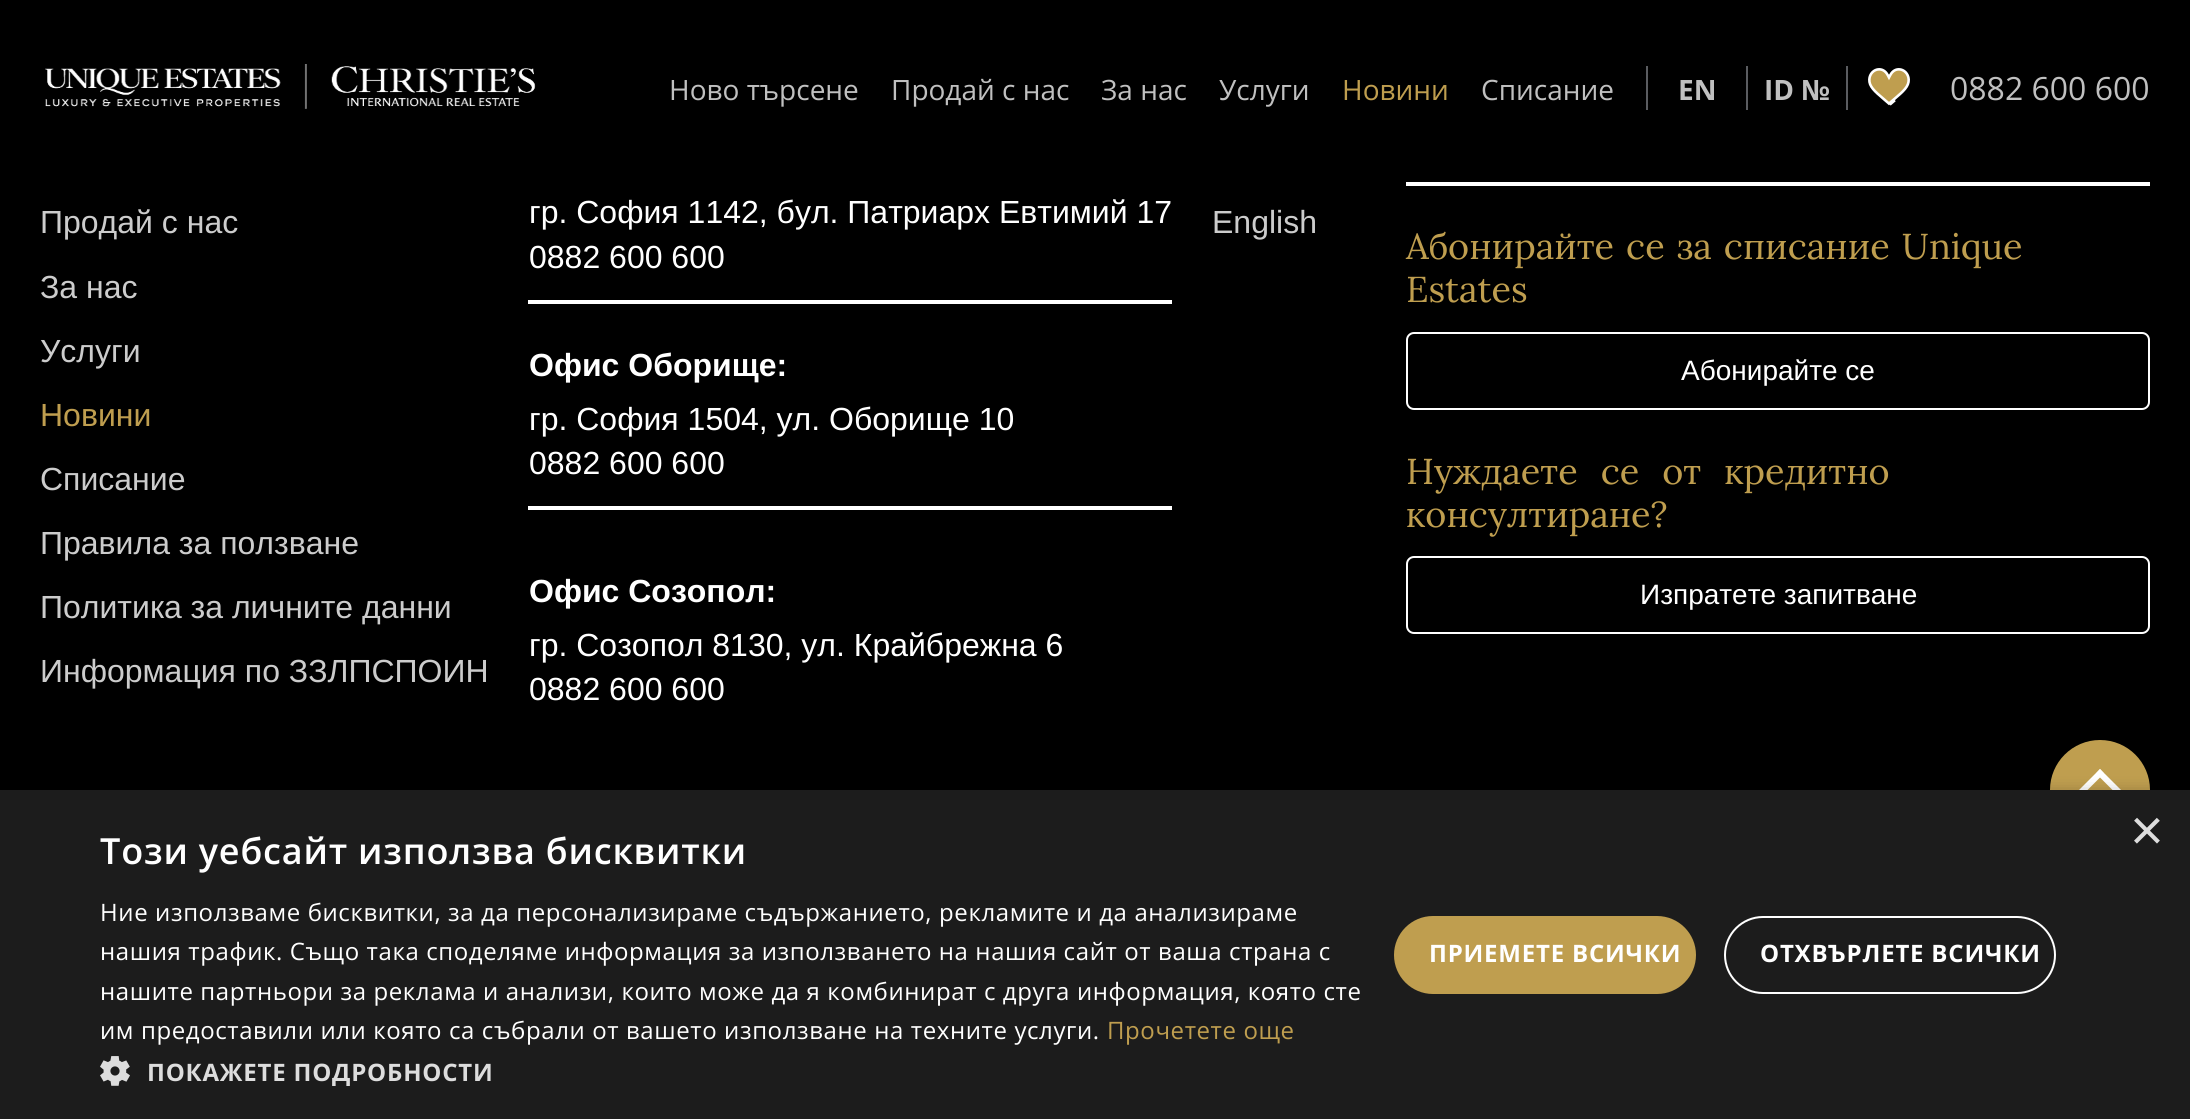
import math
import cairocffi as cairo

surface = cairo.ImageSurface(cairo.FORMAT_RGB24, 2190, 1119)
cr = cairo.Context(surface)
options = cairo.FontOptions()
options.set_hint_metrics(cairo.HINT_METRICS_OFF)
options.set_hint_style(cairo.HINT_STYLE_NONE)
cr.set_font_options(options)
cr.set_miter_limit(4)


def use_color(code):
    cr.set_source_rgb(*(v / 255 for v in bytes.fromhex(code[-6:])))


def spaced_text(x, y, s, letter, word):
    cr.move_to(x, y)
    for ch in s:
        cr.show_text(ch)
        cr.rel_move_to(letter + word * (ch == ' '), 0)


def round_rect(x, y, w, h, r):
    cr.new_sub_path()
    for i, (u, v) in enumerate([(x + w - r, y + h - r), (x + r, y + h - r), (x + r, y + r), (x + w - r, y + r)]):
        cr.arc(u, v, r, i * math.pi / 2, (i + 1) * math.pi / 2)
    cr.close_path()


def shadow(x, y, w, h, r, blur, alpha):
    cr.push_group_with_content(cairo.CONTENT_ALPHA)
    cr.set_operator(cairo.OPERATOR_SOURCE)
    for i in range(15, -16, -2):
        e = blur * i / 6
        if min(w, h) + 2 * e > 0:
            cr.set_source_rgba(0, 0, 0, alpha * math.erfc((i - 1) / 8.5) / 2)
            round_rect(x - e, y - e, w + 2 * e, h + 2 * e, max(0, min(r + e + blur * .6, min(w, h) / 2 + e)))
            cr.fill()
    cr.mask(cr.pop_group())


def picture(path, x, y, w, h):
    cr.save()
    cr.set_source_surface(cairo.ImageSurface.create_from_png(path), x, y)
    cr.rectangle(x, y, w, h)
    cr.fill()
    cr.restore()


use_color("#000000")
cr.paint()
picture("img1.png", 45, 64, 491, 45)
use_color("#5a5c60")
cr.rectangle(1646, 66, 2, 44)
cr.fill()
cr.select_font_face("Open Sans")
cr.set_font_size(28)
use_color("#c0c0c0")
cr.move_to(669, 100)
cr.show_text("Ново търсене")
cr.move_to(891, 100)
cr.show_text("Продай с нас")
cr.move_to(1101, 100)
cr.show_text("За нас")
cr.move_to(1219, 100)
cr.show_text("Услуги")
use_color("#bf9e4f")
cr.move_to(1342, 100)
cr.show_text("Новини")
use_color("#c0c0c0")
cr.move_to(1481, 100)
cr.show_text("Списание")
use_color("#5a5c60")
cr.rectangle(1746, 66, 2, 44)
cr.fill()
cr.select_font_face("Open Sans", cairo.FONT_SLANT_NORMAL, cairo.FONT_WEIGHT_BOLD)
use_color("#c0c0c0")
cr.move_to(1678, 100)
cr.show_text("EN")
use_color("#5a5c60")
cr.rectangle(1846, 66, 2, 44)
cr.fill()
use_color("#c0c0c0")
cr.move_to(1764, 100)
cr.show_text("ID №")
picture("img2.png", 1868, 68, 42, 38)
cr.select_font_face("Open Sans")
cr.set_font_size(32)
cr.move_to(1950, 100)
cr.show_text("0882 600 600")
cr.select_font_face("Liberation Sans")
use_color("#cccccc")
cr.move_to(40, 233)
cr.show_text("Продай с нас")
cr.move_to(40, 298)
cr.show_text("За нас")
cr.move_to(40, 362)
cr.show_text("Услуги")
use_color("#bf9e4f")
cr.move_to(40, 426)
cr.show_text("Новини")
use_color("#cccccc")
cr.move_to(40, 490)
cr.show_text("Списание")
cr.move_to(40, 554)
cr.show_text("Правила за ползване")
cr.move_to(40, 618)
cr.show_text("Политика за личните данни")
cr.move_to(40, 682)
cr.show_text("Информация по ЗЗЛПСПОИН")
use_color("#ffffff")
cr.rectangle(528, 300, 644, 4)
cr.fill()
cr.move_to(529, 223)
cr.show_text("гр. София 1142, бул. Патриарх Евтимий 17")
cr.move_to(529, 268)
cr.show_text("0882 600 600")
cr.rectangle(528, 506, 644, 4)
cr.fill()
cr.select_font_face("Liberation Sans", cairo.FONT_SLANT_NORMAL, cairo.FONT_WEIGHT_BOLD)
cr.move_to(529, 376)
cr.show_text("Офис Оборище:")
cr.select_font_face("Liberation Sans")
cr.move_to(529, 430)
cr.show_text("гр. София 1504, ул. Оборище 10")
cr.move_to(529, 474)
cr.show_text("0882 600 600")
cr.select_font_face("Liberation Sans", cairo.FONT_SLANT_NORMAL, cairo.FONT_WEIGHT_BOLD)
cr.move_to(529, 602)
cr.show_text("Офис Созопол:")
cr.select_font_face("Liberation Sans")
cr.move_to(529, 656)
cr.show_text("гр. Созопол 8130, ул. Крайбрежна 6")
cr.move_to(529, 700)
cr.show_text("0882 600 600")
use_color("#cccccc")
cr.move_to(1212, 233)
cr.show_text("English")
use_color("#ffffff")
cr.rectangle(1406, 182, 744, 4)
cr.fill()
cr.select_font_face("Lora")
cr.set_font_size(36)
use_color("#bf9e4f")
spaced_text(1406, 259, "Абонирайте се за списание Unique", 0, 2.5)
cr.move_to(1406, 302)
cr.show_text("Estates")
round_rect(1407, 333, 742, 76, 7)
use_color("#ffffff")
cr.stroke()
cr.select_font_face("Liberation Sans")
cr.set_font_size(28)
cr.move_to(1681, 380)
cr.show_text("Абонирайте се")
cr.select_font_face("Lora")
cr.set_font_size(36)
use_color("#bf9e4f")
spaced_text(1406, 484, "Нуждаете се от кредитно", 0, 13.5)
cr.move_to(1406, 527)
cr.show_text("консултиране?")
round_rect(1407, 557, 742, 76, 7)
use_color("#ffffff")
cr.stroke()
cr.select_font_face("Liberation Sans")
cr.set_font_size(28)
cr.move_to(1640, 604)
cr.show_text("Изпратете запитване")
use_color("#bf9e4f")
cr.new_path()
cr.arc(2100, 790, 50, 0, 2 * math.pi)
cr.fill()
use_color("#ffffff")
cr.new_path()
cr.move_to(2077.5, 800)
cr.line_to(2073, 796)
cr.line_to(2100, 769)
cr.line_to(2104, 773.5)
cr.close_path()
cr.fill()
cr.new_path()
cr.move_to(2122.5, 800)
cr.line_to(2096, 773.5)
cr.line_to(2100, 769)
cr.line_to(2127, 796)
cr.close_path()
cr.fill()
use_color("#000000")
shadow(2, 794, 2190, 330, 0, 8, 0.35)
use_color("#1c1c1c")
cr.rectangle(0, 790, 2190, 329)
cr.fill()
cr.set_font_size(58)
use_color("#dddddd")
cr.move_to(2130, 850)
cr.show_text("×")
cr.select_font_face("Open Sans SemiBold")
cr.set_font_size(36)
use_color("#ffffff")
spaced_text(100, 864, "Този уебсайт използва бисквитки", 0.8, 0)
cr.select_font_face("Open Sans")
cr.set_font_size(24)
spaced_text(100, 921, "Ние използваме бисквитки, за да персонализираме съдържанието, рекламите и да анализираме", 0.6, 0)
spaced_text(100, 960, "нашия трафик. Също така споделяме информация за използването на нашия сайт от ваша страна с", 0.6, 0)
spaced_text(100, 1000, "нашите партньори за реклама и анализи, които може да я комбинират с друга информация, която сте", 0.6, 0)
spaced_text(100, 1039, "им предоставили или която са събрали от вашето използване на техните услуги.", 0.6, 0)
use_color("#bf9e4f")
spaced_text(1107, 1039, "Прочетете още", 0.6, 0)
picture("img3.png", 100, 1056, 30, 30)
cr.select_font_face("Open Sans", cairo.FONT_SLANT_NORMAL, cairo.FONT_WEIGHT_BOLD)
use_color("#dddddd")
spaced_text(147, 1081, "ПОКАЖЕТЕ ПОДРОБНОСТИ", 0.8, 0)
use_color("#bf9e4f")
round_rect(1394, 916, 302, 78, 39)
cr.fill()
use_color("#ffffff")
spaced_text(1429, 962, "ПРИЕМЕТЕ ВСИЧКИ", 0.8, 0)
round_rect(1725, 917, 330, 76, 38)
cr.stroke()
spaced_text(1760, 962, "ОТХВЪРЛЕТЕ ВСИЧКИ", 0.8, 0)
surface.write_to_png("result.png")
